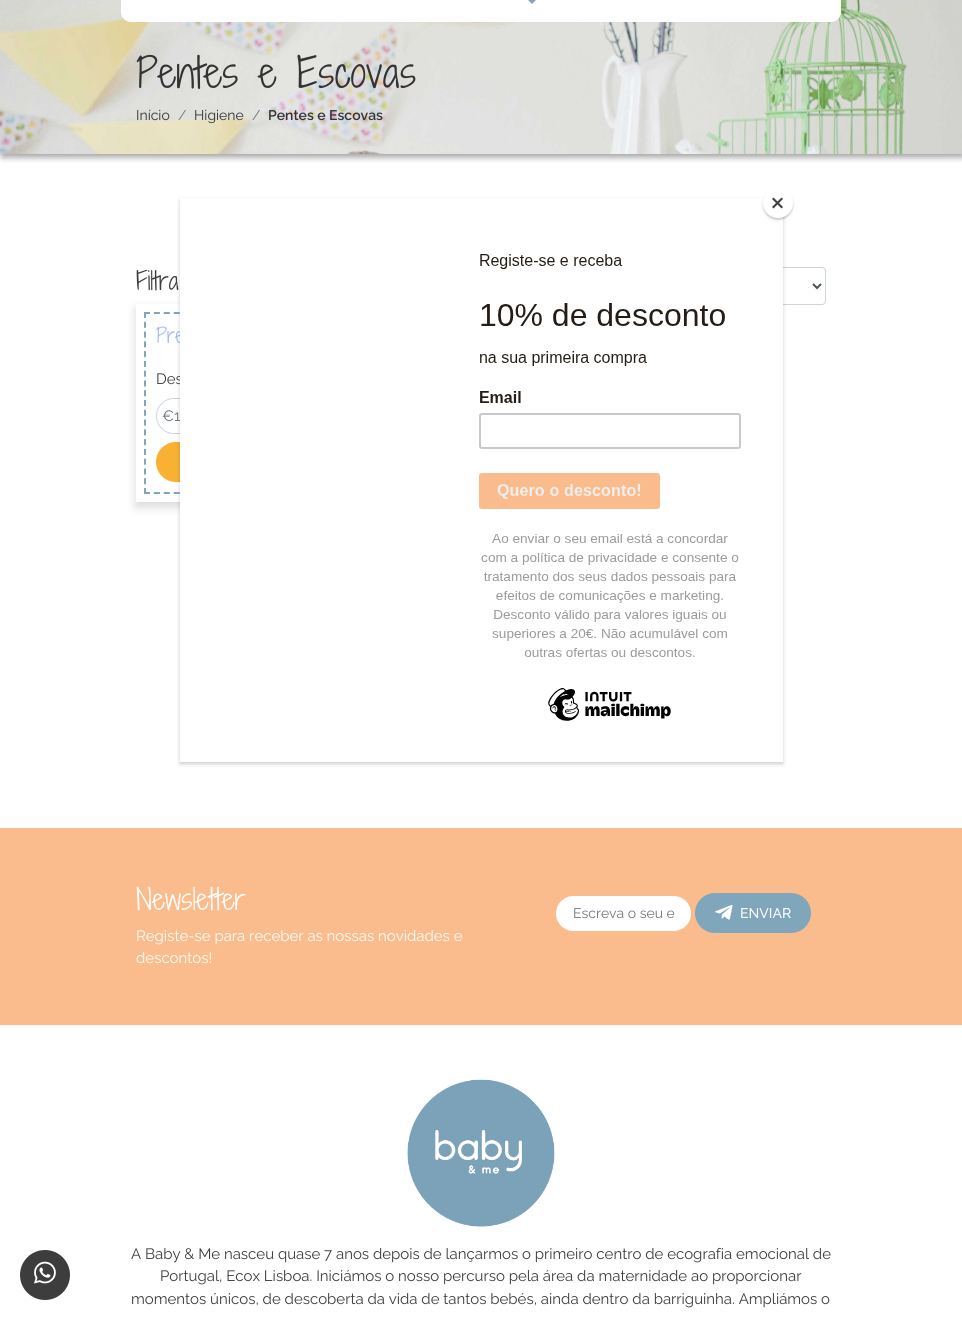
import math
import cairocffi as cairo

surface = cairo.ImageSurface(cairo.FORMAT_RGB24, 962, 1320)
cr = cairo.Context(surface)
options = cairo.FontOptions()
options.set_hint_metrics(cairo.HINT_METRICS_OFF)
options.set_hint_style(cairo.HINT_STYLE_NONE)
cr.set_font_options(options)
cr.set_miter_limit(4)


def use_color(code):
    cr.set_source_rgb(*(v / 255 for v in bytes.fromhex(code[-6:])))


def round_rect(x, y, w, h, r):
    cr.new_sub_path()
    for i, (u, v) in enumerate([(x + w - r, y + h - r), (x + r, y + h - r), (x + r, y + r), (x + w - r, y + r)]):
        cr.arc(u, v, r, i * math.pi / 2, (i + 1) * math.pi / 2)
    cr.close_path()


def shadow(x, y, w, h, r, blur, alpha):
    cr.push_group_with_content(cairo.CONTENT_ALPHA)
    cr.set_operator(cairo.OPERATOR_SOURCE)
    for i in range(15, -16, -2):
        e = blur * i / 6
        if min(w, h) + 2 * e > 0:
            cr.set_source_rgba(0, 0, 0, alpha * math.erfc((i - 1) / 8.5) / 2)
            round_rect(x - e, y - e, w + 2 * e, h + 2 * e, max(0, min(r + e + blur * .6, min(w, h) / 2 + e)))
            cr.fill()
    cr.mask(cr.pop_group())


def picture(path, x, y, w, h):
    cr.save()
    cr.set_source_surface(cairo.ImageSurface.create_from_png(path), x, y)
    cr.rectangle(x, y, w, h)
    cr.fill()
    cr.restore()


use_color("#ffffff")
cr.paint()
use_color("#000000")
shadow(0, -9, 962, 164, 0, 3, 0.23)
shadow(2, -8, 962, 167, 0, 2.5, 0.19)
picture("img1.png", 0, 0, 962, 154)
use_color("#ffffff")
cr.new_path()
cr.move_to(121, -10)
cr.line_to(841, -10)
cr.line_to(841, 12)
cr.curve_to(841, 17.5, 836.5, 22, 831, 22)
cr.line_to(131, 22)
cr.curve_to(125.5, 22, 121, 17.5, 121, 12)
cr.close_path()
cr.fill()
use_color("#80a6bc")
cr.new_path()
cr.move_to(528, 0)
cr.line_to(536, 0)
cr.line_to(532, 4)
cr.close_path()
cr.fill()
cr.select_font_face("Shadows Into Light Two Light")
cr.set_font_size(40)
use_color("#333333")
cr.move_to(136, 88)
cr.show_text("Pentes e Escovas")
cr.select_font_face("Raleway")
cr.set_font_size(14)
cr.move_to(136, 120)
cr.show_text("Início")
use_color("#6c757d")
cr.move_to(178, 120)
cr.show_text("/")
use_color("#333333")
cr.move_to(194, 120)
cr.show_text("Higiene")
use_color("#6c757d")
cr.move_to(252, 120)
cr.show_text("/")
cr.select_font_face("Raleway SemiBold")
use_color("#333333")
cr.move_to(268, 120)
cr.show_text("Pentes e Escovas")
cr.select_font_face("Shadows Into Light Two Light")
cr.set_font_size(24)
use_color("#3d3d3d")
cr.move_to(136, 290)
cr.show_text("Filtra")
cr.save()
cr.set_fill_rule(cairo.FILL_RULE_EVEN_ODD)
cr.new_path()
cr.move_to(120, 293)
cr.line_to(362, 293)
cr.line_to(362, 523)
cr.line_to(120, 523)
cr.close_path()
cr.move_to(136, 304)
cr.line_to(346, 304)
cr.line_to(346, 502)
cr.line_to(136, 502)
cr.close_path()
cr.clip()
use_color("#000000")
shadow(136, 309, 210, 198, 0, 5, 0.15)
cr.restore()
cr.new_path()
cr.move_to(144, 313)
cr.line_to(338, 313)
use_color("#80a6bc")
cr.set_dash([6, 3.89])
cr.stroke()
cr.new_path()
cr.move_to(144, 493)
cr.line_to(338, 493)
cr.stroke()
cr.new_path()
cr.move_to(145, 312)
cr.line_to(145, 494)
cr.set_dash([6, 3.78])
cr.stroke()
cr.set_font_size(20)
use_color("#a1b7e8")
cr.move_to(156, 343)
cr.show_text("Pre")
cr.select_font_face("Raleway")
cr.set_font_size(15)
use_color("#3d3d3d")
cr.move_to(156, 384)
cr.show_text("Des")
round_rect(156.5, 398.5, 79, 35, 17.5)
use_color("#ced4da")
cr.set_line_width(1)
cr.set_dash([])
cr.stroke()
use_color("#6c757d")
cr.move_to(162, 421)
cr.show_text("€1")
use_color("#f8b133")
round_rect(156, 442, 170, 40, 20)
cr.fill()
round_rect(696.5, 267.5, 129, 37, 3.5)
use_color("#ced4da")
cr.stroke()
cr.new_path()
cr.move_to(813, 284)
cr.line_to(817, 288)
cr.line_to(821, 284)
use_color("#495057")
cr.set_line_width(2)
cr.stroke()
use_color("#000000")
shadow(763, 190, 30, 30, 15, 1, 0.2)
cr.save()
cr.set_fill_rule(cairo.FILL_RULE_EVEN_ODD)
cr.new_path()
cr.move_to(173, 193)
cr.line_to(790, 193)
cr.line_to(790, 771)
cr.line_to(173, 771)
cr.close_path()
cr.move_to(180, 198)
cr.line_to(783, 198)
cr.line_to(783, 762)
cr.line_to(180, 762)
cr.close_path()
cr.clip()
shadow(180, 200, 603, 564, 0, 2, 0.2)
cr.restore()
use_color("#ffffff")
cr.arc(778, 203, 15, 0, 2 * math.pi)
cr.fill()
use_color("#414141")
cr.new_path()
cr.move_to(781.5, 197.5)
cr.line_to(783, 199)
cr.line_to(773.5, 208.5)
cr.line_to(772, 207)
cr.close_path()
cr.fill()
cr.new_path()
cr.move_to(772, 199)
cr.line_to(773.5, 197.5)
cr.line_to(783, 207)
cr.line_to(781.5, 208.5)
cr.close_path()
cr.fill()
picture("img2.png", 180, 254, 603, 467)
use_color("#3d3d3d")
cr.arc(45, 1275, 25, 0, 2 * math.pi)
cr.fill()
picture("img3.png", 34, 1261, 22, 23)
use_color("#fabc8c")
cr.rectangle(0, 828, 962, 197)
cr.fill()
cr.select_font_face("Shadows Into Light Two Light")
cr.set_font_size(28)
use_color("#ffffff")
cr.move_to(136, 910)
cr.show_text("Newsletter")
cr.select_font_face("Raleway")
cr.set_font_size(15)
cr.move_to(136, 941)
cr.show_text("Registe-se para receber as nossas novidades e")
cr.move_to(136, 963)
cr.show_text("descontos!")
round_rect(556, 896, 135, 35, 17.5)
cr.fill()
cr.set_font_size(14)
use_color("#757575")
cr.move_to(573, 918)
cr.show_text("Escreva o seu e")
use_color("#80a6bc")
round_rect(695, 893, 116, 40, 20)
cr.fill()
picture("img4.png", 715, 905, 18, 15)
cr.select_font_face("Raleway Medium")
use_color("#ffffff")
cr.move_to(740, 918)
cr.show_text("ENVIAR")
picture("img5.png", 407, 1079, 148, 148)
cr.select_font_face("Raleway")
cr.set_font_size(15)
use_color("#3d3d3d")
cr.move_to(131, 1259)
cr.show_text("A Baby & Me nasceu quase 7 anos depois de lançarmos o primeiro centro de ecografia emocional de")
cr.move_to(160, 1281)
cr.show_text("Portugal, Ecox Lisboa. Iniciámos o nosso percurso pela área da maternidade ao proporcionar")
cr.move_to(131, 1304)
cr.show_text("momentos únicos, de descoberta da vida de tantos bebés, ainda dentro da barriguinha. Ampliámos o")
surface.write_to_png("result.png")
